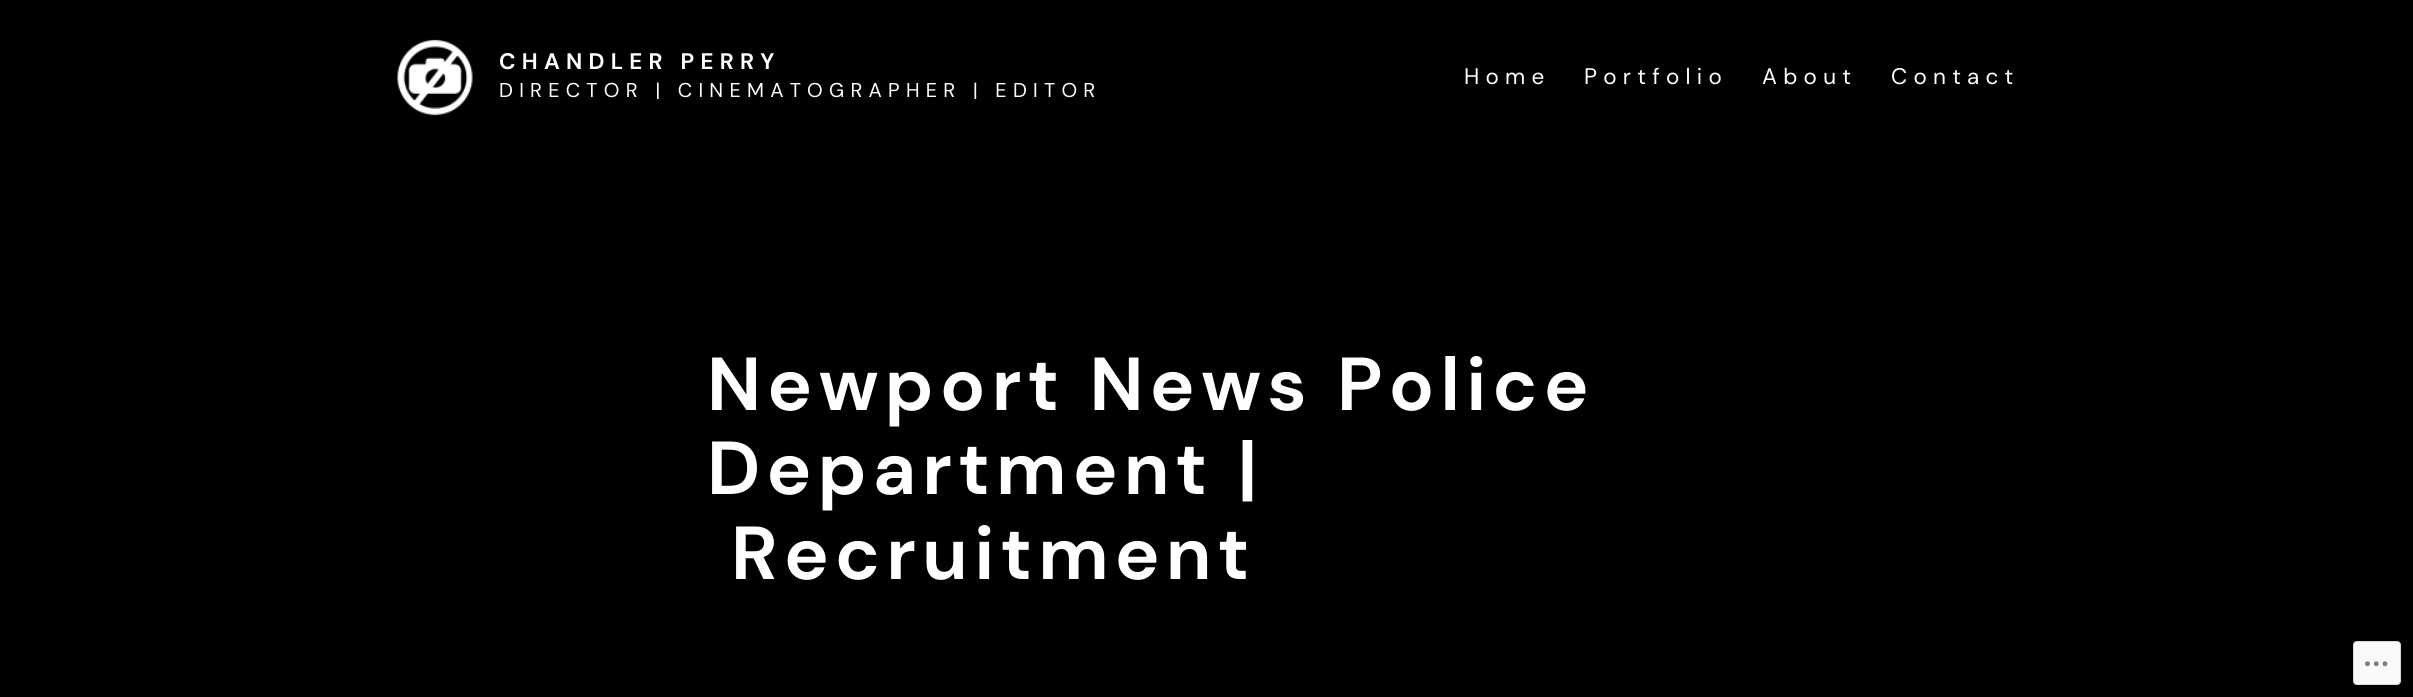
import math
import cairocffi as cairo

surface = cairo.ImageSurface(cairo.FORMAT_RGB24, 2413, 697)
cr = cairo.Context(surface)
options = cairo.FontOptions()
options.set_hint_metrics(cairo.HINT_METRICS_OFF)
options.set_hint_style(cairo.HINT_STYLE_NONE)
cr.set_font_options(options)
cr.set_miter_limit(4)


def use_color(code):
    cr.set_source_rgb(*(v / 255 for v in bytes.fromhex(code[-6:])))


def spaced_text(x, y, s, letter, word):
    cr.move_to(x, y)
    for ch in s:
        cr.show_text(ch)
        cr.rel_move_to(letter + word * (ch == ' '), 0)


def round_rect(x, y, w, h, r):
    cr.new_sub_path()
    for i, (u, v) in enumerate([(x + w - r, y + h - r), (x + r, y + h - r), (x + r, y + r), (x + w - r, y + r)]):
        cr.arc(u, v, r, i * math.pi / 2, (i + 1) * math.pi / 2)
    cr.close_path()


def picture(path, x, y, w, h):
    cr.save()
    cr.set_source_surface(cairo.ImageSurface.create_from_png(path), x, y)
    cr.rectangle(x, y, w, h)
    cr.fill()
    cr.restore()


use_color("#000000")
cr.paint()
picture("img1.png", 397, 39, 76, 77)
cr.select_font_face("DM Sans", cairo.FONT_SLANT_NORMAL, cairo.FONT_WEIGHT_BOLD)
cr.set_font_size(22.5)
use_color("#ffffff")
spaced_text(499, 69, "CHANDLER PERRY", 6.25, 0)
cr.select_font_face("DM Sans")
cr.set_font_size(20)
spaced_text(499, 97, "DIRECTOR | CINEMATOGRAPHER | EDITOR", 6.25, 0)
cr.set_font_size(22.5)
spaced_text(1464, 84, "Home", 6.25, 0)
spaced_text(1584, 84, "Portfolio", 6.25, 0)
spaced_text(1762, 84, "About", 6.25, 0)
spaced_text(1891, 84, "Contact", 6.25, 0)
cr.select_font_face("DM Sans", cairo.FONT_SLANT_NORMAL, cairo.FONT_WEIGHT_BOLD)
cr.set_font_size(75)
spaced_text(707, 410, "Newport News Police", 6.25, 0)
spaced_text(707, 494, "Department |", 6.25, 0)
spaced_text(731, 579, "Recruitment", 6.25, 0)
use_color("#fafafa")
round_rect(2353.5, 641.5, 47, 43, 3.5)
cr.fill_preserve()
use_color("#d8d8da")
cr.set_line_width(1)
cr.stroke()
picture("img2.png", 2365, 661, 23, 6)
surface.write_to_png("result.png")
